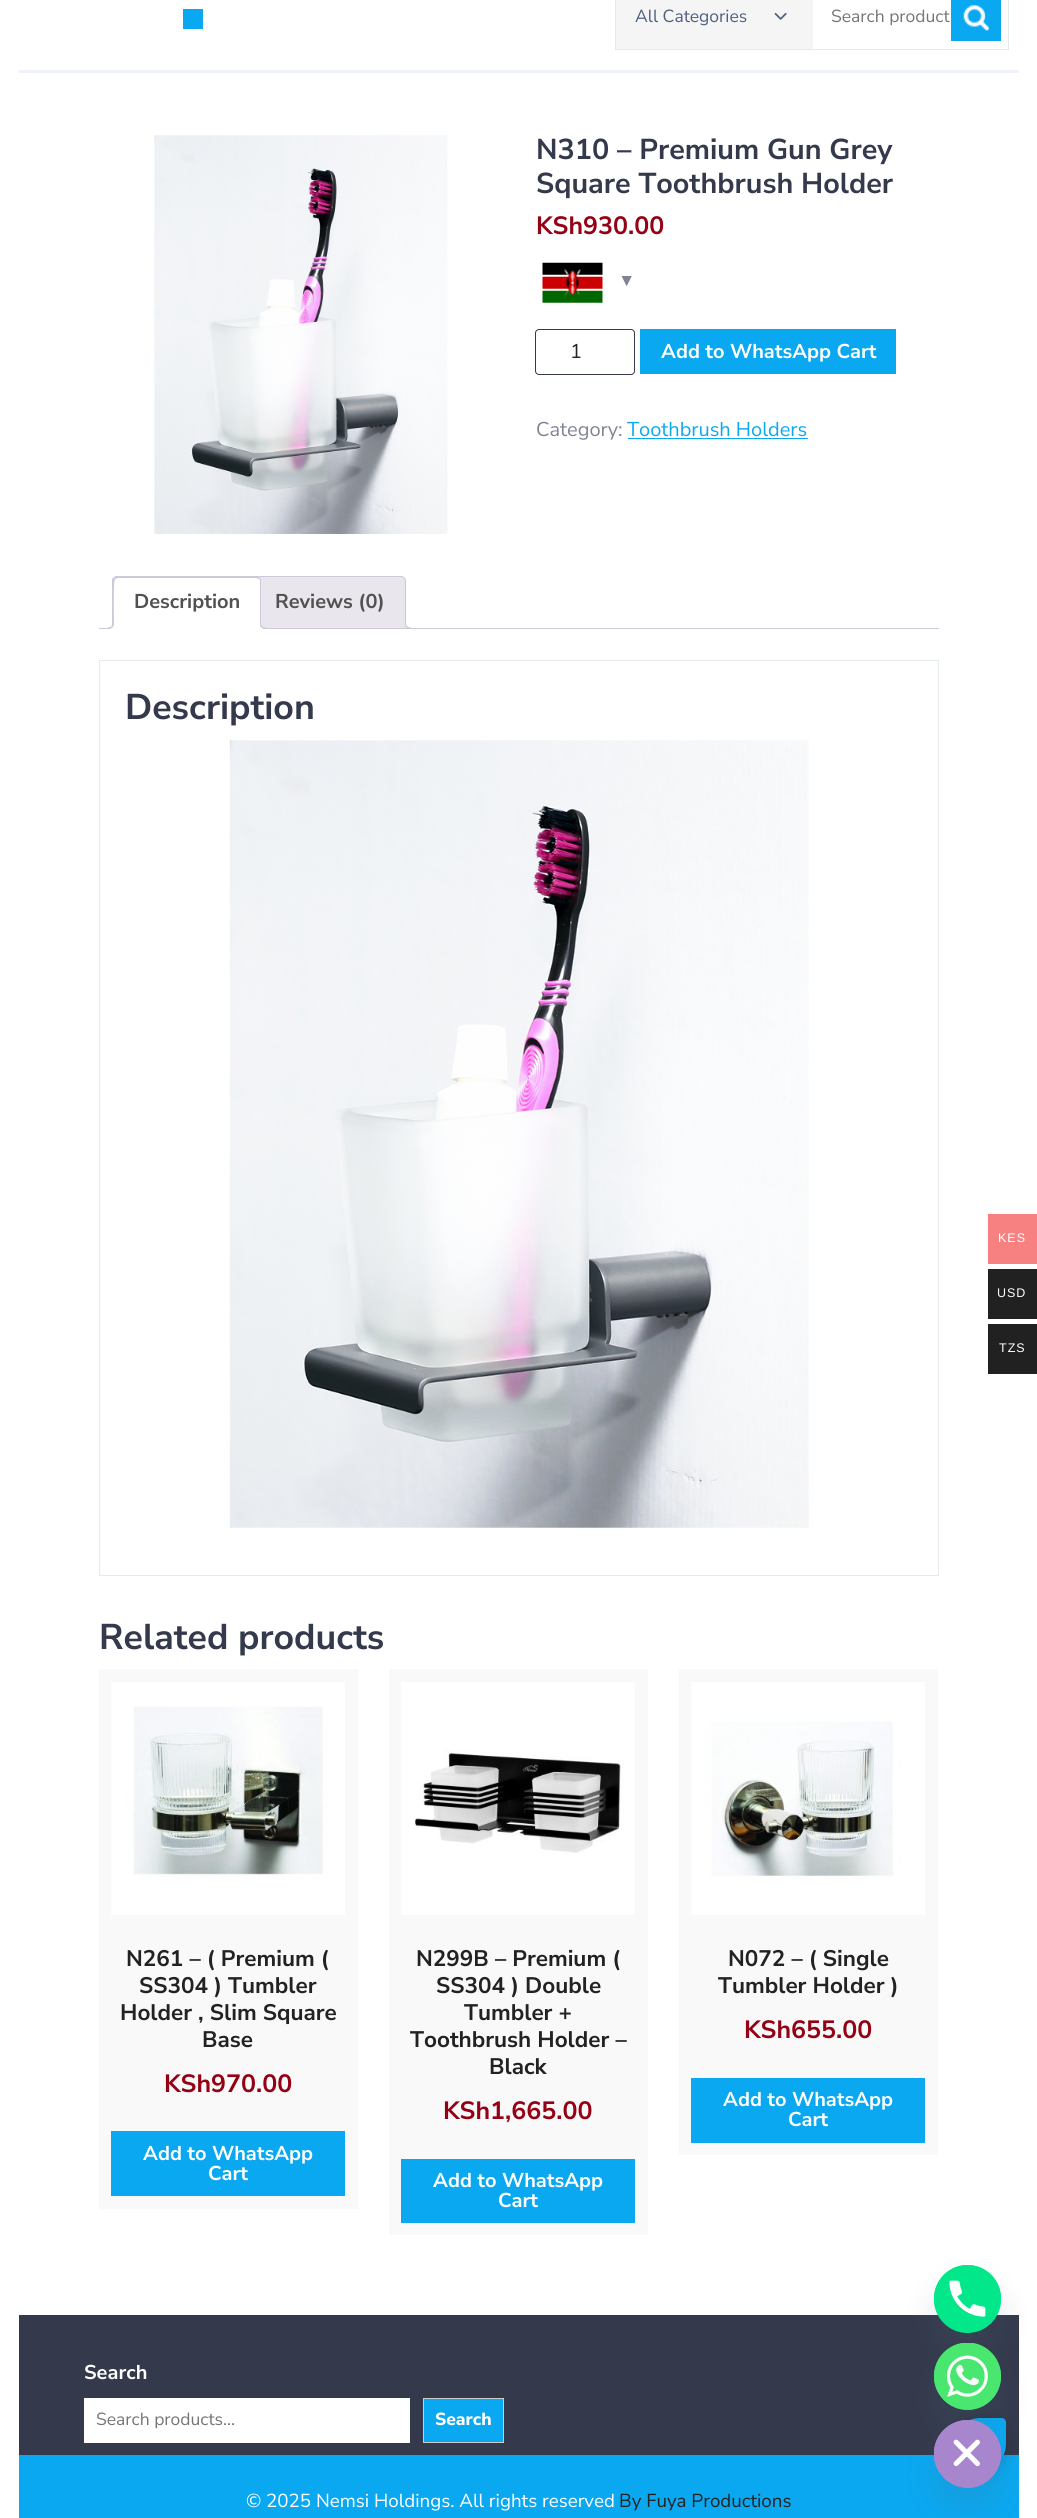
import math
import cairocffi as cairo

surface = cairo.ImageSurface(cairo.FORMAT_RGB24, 1037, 2518)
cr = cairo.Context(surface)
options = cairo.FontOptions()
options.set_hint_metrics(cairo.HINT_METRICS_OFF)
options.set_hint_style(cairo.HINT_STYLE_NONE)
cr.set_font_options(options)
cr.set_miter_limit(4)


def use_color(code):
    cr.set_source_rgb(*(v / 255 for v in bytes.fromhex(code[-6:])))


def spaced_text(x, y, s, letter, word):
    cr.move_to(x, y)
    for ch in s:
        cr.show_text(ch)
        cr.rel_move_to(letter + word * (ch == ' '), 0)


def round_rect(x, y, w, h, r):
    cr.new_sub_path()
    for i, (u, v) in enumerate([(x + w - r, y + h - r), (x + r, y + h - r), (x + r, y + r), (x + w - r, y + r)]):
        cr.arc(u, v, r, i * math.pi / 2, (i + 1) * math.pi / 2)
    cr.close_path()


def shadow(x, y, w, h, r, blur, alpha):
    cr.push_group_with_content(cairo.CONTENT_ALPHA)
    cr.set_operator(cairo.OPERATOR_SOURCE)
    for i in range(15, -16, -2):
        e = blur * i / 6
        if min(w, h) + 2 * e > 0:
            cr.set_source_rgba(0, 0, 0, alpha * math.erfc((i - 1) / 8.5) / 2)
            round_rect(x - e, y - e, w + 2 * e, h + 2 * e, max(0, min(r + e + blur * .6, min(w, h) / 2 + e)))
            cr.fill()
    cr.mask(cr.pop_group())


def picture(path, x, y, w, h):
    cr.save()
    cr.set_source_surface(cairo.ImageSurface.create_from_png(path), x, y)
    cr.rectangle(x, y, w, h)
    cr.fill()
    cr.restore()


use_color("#ffffff")
cr.paint()
use_color("#eff2f9")
cr.rectangle(19, 70, 1000, 3)
cr.fill()
use_color("#0aa8f1")
cr.rectangle(183, 9, 20, 20)
cr.fill()
cr.rectangle(615.5, -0.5, 393, 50)
use_color("#e5eaec")
cr.set_line_width(1)
cr.stroke()
use_color("#f5f5f5")
cr.rectangle(616, 0, 197, 49)
cr.fill()
cr.select_font_face("Nunito Sans")
cr.set_font_size(17.5)
use_color("#4e5f81")
cr.move_to(635, 22)
cr.show_text("All Categories")
picture("img1.png", 774, 12, 13, 8)
use_color("#757575")
cr.move_to(831, 22)
cr.show_text("Search product")
use_color("#0aa8f1")
cr.rectangle(951, 0, 50, 41)
cr.fill()
picture("img2.png", 963, 5, 26, 26)
picture("img3.png", 154, 135, 294, 399)
cr.select_font_face("Nunito Sans", cairo.FONT_SLANT_NORMAL, cairo.FONT_WEIGHT_BOLD)
cr.set_font_size(28.75)
use_color("#34394c")
cr.move_to(536, 159)
cr.show_text("N310 – Premium Gun Grey")
cr.move_to(536, 193)
cr.show_text("Square Toothbrush Holder")
cr.set_font_size(25)
use_color("#950114")
cr.move_to(536, 234)
cr.show_text("KSh930.00")
picture("img4.png", 542, 262, 61, 41)
cr.select_font_face("Liberation Sans")
cr.set_font_size(17.5)
use_color("#7f8495")
cr.move_to(618, 286)
cr.show_text("▼")
round_rect(535.5, 329.5, 99, 45, 3.5)
use_color("#34394c")
cr.stroke()
cr.select_font_face("Nunito Sans")
cr.set_font_size(20)
use_color("#222222")
cr.move_to(570, 358)
cr.show_text("1")
use_color("#0aa8f1")
cr.rectangle(640, 329, 256, 45)
cr.fill()
cr.select_font_face("Nunito Sans", cairo.FONT_SLANT_NORMAL, cairo.FONT_WEIGHT_BOLD)
use_color("#ffffff")
cr.move_to(661, 358)
cr.show_text("Add to WhatsApp Cart")
cr.select_font_face("Nunito Sans")
use_color("#7f8495")
cr.move_to(536, 436)
cr.show_text("Category:")
use_color("#0aa8f1")
cr.move_to(627, 436)
cr.show_text("Toothbrush Holders")
cr.rectangle(628, 438, 180, 1)
cr.fill()
use_color("#e9e6ed")
cr.new_path()
cr.move_to(259, 576.5)
cr.line_to(401, 576.5)
cr.curve_to(403.5, 576.5, 405.5, 578.5, 405.5, 581)
cr.line_to(405.5, 628.5)
cr.line_to(254.5, 628.5)
cr.line_to(254.5, 581)
cr.curve_to(254.5, 578.5, 256.5, 576.5, 259, 576.5)
cr.close_path()
cr.fill_preserve()
use_color("#cfc8d8")
cr.stroke()
cr.save()
cr.rectangle(99, 576, 840, 53)
cr.clip()
use_color("#e9e6ed")
cr.new_path()
cr.move_to(403, 625)
cr.curve_to(403, 629, 405, 631, 409, 631)
cr.line_to(409, 628.5)
cr.curve_to(407, 628.5, 405.5, 627, 405, 625)
cr.close_path()
cr.fill()
cr.restore()
cr.set_fill_rule(cairo.FILL_RULE_EVEN_ODD)
cr.new_path()
cr.move_to(405, 622.5)
cr.line_to(411, 622.5)
cr.line_to(411, 629)
cr.curve_to(408, 629, 405, 627.5, 405, 624)
cr.close_path()
cr.move_to(406, 622.5)
cr.line_to(411, 622.5)
cr.line_to(411, 627.5)
cr.curve_to(409, 627.5, 406, 626.5, 406, 624)
cr.close_path()
cr.fill()
cr.rectangle(99, 628, 840, 1)
cr.fill()
use_color("#ffffff")
cr.new_path()
cr.move_to(118, 576)
cr.line_to(256, 576)
cr.curve_to(259, 576, 261, 578, 261, 581)
cr.line_to(261, 629)
cr.line_to(113, 629)
cr.line_to(113, 581)
cr.curve_to(113, 578, 115, 576, 118, 576)
cr.close_path()
cr.fill()
cr.save()
cr.set_fill_rule(cairo.FILL_RULE_WINDING)
cr.rectangle(99, 576, 840, 53)
cr.clip()
use_color("#cfc8d8")
cr.new_path()
cr.move_to(118, 578)
cr.line_to(115, 579)
cr.line_to(114, 577)
cr.curve_to(120, 572, 131, 576, 140, 576)
cr.line_to(258, 576)
cr.line_to(260, 578)
cr.line_to(259, 579)
cr.line_to(256, 578)
cr.close_path()
cr.fill()
cr.restore()
use_color("#cfc8d8")
cr.set_fill_rule(cairo.FILL_RULE_WINDING)
cr.new_path()
cr.move_to(260, 578)
cr.curve_to(261, 578, 261, 580, 261, 581)
cr.line_to(261, 628)
cr.line_to(260, 628)
cr.line_to(260, 580)
cr.line_to(259, 579)
cr.close_path()
cr.fill()
use_color("#ffffff")
cr.new_path()
cr.move_to(261, 628)
cr.line_to(112, 629)
cr.line_to(114, 627)
cr.line_to(114, 628)
cr.line_to(260, 628)
cr.close_path()
cr.fill()
use_color("#cfc8d8")
cr.new_path()
cr.move_to(112, 629)
cr.line_to(112, 579)
cr.line_to(114, 577)
cr.line_to(115, 579)
cr.curve_to(113, 580, 114, 622, 114, 627)
cr.close_path()
cr.fill()
cr.select_font_face("Nunito Sans", cairo.FONT_SLANT_NORMAL, cairo.FONT_WEIGHT_BOLD)
use_color("#515151")
cr.move_to(134, 608)
cr.show_text("Description")
cr.save()
cr.rectangle(99, 576, 840, 53)
cr.clip()
use_color("#ffffff")
cr.new_path()
cr.move_to(110, 628.5)
cr.line_to(110, 631)
cr.curve_to(114, 631, 116, 629, 116, 625)
cr.line_to(113.5, 625)
cr.curve_to(113, 627, 112, 628, 110, 628.5)
cr.close_path()
cr.fill()
cr.restore()
use_color("#cfc8d8")
cr.set_fill_rule(cairo.FILL_RULE_EVEN_ODD)
cr.new_path()
cr.move_to(107.5, 622.5)
cr.line_to(114, 622.5)
cr.curve_to(114, 627, 112, 629, 107.5, 629)
cr.close_path()
cr.move_to(107.5, 622.5)
cr.line_to(112.5, 622.5)
cr.curve_to(112.5, 626, 111, 627.5, 107.5, 627.5)
cr.close_path()
cr.fill()
cr.save()
cr.set_fill_rule(cairo.FILL_RULE_WINDING)
cr.rectangle(99, 576, 840, 53)
cr.clip()
use_color("#ffffff")
cr.new_path()
cr.move_to(258, 625)
cr.curve_to(258, 629, 260, 631, 264, 631)
cr.line_to(264, 628.5)
cr.curve_to(262, 628.5, 260.5, 627, 260, 625)
cr.close_path()
cr.fill()
cr.restore()
cr.new_path()
cr.move_to(260, 622.5)
cr.line_to(266, 622.5)
cr.line_to(266, 629)
cr.curve_to(263, 629, 260, 627.5, 260, 624)
cr.close_path()
cr.move_to(261, 622.5)
cr.line_to(266, 622.5)
cr.line_to(266, 627.5)
cr.curve_to(264, 627.5, 261, 626.5, 261, 624)
cr.close_path()
cr.fill()
use_color("#515151")
cr.move_to(275, 608)
cr.show_text("Reviews (0)")
cr.rectangle(99.5, 660.5, 839, 915)
use_color("#e5eaec")
cr.stroke()
cr.set_font_size(35.75)
use_color("#34394c")
cr.move_to(125, 719)
cr.show_text("Description")
picture("img5.png", 229, 740, 580, 788)
cr.move_to(99, 1649)
cr.show_text("Related products")
use_color("#f9f9f9")
cr.rectangle(99, 1669, 259, 540)
cr.fill()
picture("img6.png", 111, 1682, 234, 233)
cr.set_font_size(22.5)
use_color("#222222")
cr.move_to(126, 1966)
cr.show_text("N261 – ( Premium (")
cr.move_to(139, 1993)
cr.show_text("SS304 ) Tumbler")
cr.move_to(120, 2020)
cr.show_text("Holder , Slim Square")
cr.move_to(202, 2047)
cr.show_text("Base")
cr.set_font_size(25)
use_color("#950114")
cr.move_to(164, 2092)
cr.show_text("KSh970.00")
use_color("#0aa8f1")
cr.rectangle(111, 2131, 234, 65)
cr.fill()
cr.set_font_size(20)
use_color("#ffffff")
cr.move_to(143, 2160)
cr.show_text("Add to WhatsApp")
cr.move_to(208, 2180)
cr.show_text("Cart")
use_color("#f9f9f9")
cr.rectangle(389, 1669, 259, 566)
cr.fill()
picture("img7.png", 401, 1682, 234, 233)
cr.set_font_size(22.5)
use_color("#222222")
cr.move_to(416, 1966)
cr.show_text("N299B – Premium (")
cr.move_to(436, 1993)
cr.show_text("SS304 ) Double")
cr.move_to(464, 2020)
cr.show_text("Tumbler +")
cr.move_to(410, 2047)
cr.show_text("Toothbrush Holder –")
cr.move_to(489, 2074)
cr.show_text("Black")
cr.set_font_size(25)
use_color("#950114")
cr.move_to(443, 2119)
cr.show_text("KSh1,665.00")
use_color("#0aa8f1")
cr.rectangle(401, 2159, 234, 64)
cr.fill()
cr.set_font_size(20)
use_color("#ffffff")
cr.move_to(433, 2187)
cr.show_text("Add to WhatsApp")
cr.move_to(498, 2207)
cr.show_text("Cart")
use_color("#f9f9f9")
cr.rectangle(679, 1669, 259, 486)
cr.fill()
picture("img8.png", 691, 1682, 234, 233)
cr.set_font_size(22.5)
use_color("#222222")
cr.move_to(728, 1966)
cr.show_text("N072 – ( Single")
cr.move_to(718, 1993)
cr.show_text("Tumbler Holder )")
cr.set_font_size(25)
use_color("#950114")
cr.move_to(744, 2038)
cr.show_text("KSh655.00")
use_color("#0aa8f1")
cr.rectangle(691, 2078, 234, 65)
cr.fill()
cr.set_font_size(20)
use_color("#ffffff")
cr.move_to(723, 2106)
cr.show_text("Add to WhatsApp")
cr.move_to(788, 2126)
cr.show_text("Cart")
use_color("#f78080")
cr.rectangle(988, 1214, 49, 50)
cr.fill()
cr.select_font_face("Liberation Sans")
cr.set_font_size(12.5)
use_color("#ffffff")
spaced_text(998, 1242, "KES", 1, 0)
use_color("#212121")
cr.rectangle(988, 1269, 49, 50)
cr.fill()
use_color("#ffffff")
spaced_text(997, 1297, "USD", 1, 0)
use_color("#212121")
cr.rectangle(988, 1324, 49, 50)
cr.fill()
use_color("#ffffff")
spaced_text(999, 1352, "TZS", 1, 0)
use_color("#34394c")
cr.rectangle(19, 2315, 1000, 140)
cr.fill()
cr.select_font_face("Nunito Sans", cairo.FONT_SLANT_NORMAL, cairo.FONT_WEIGHT_BOLD)
cr.set_font_size(20)
use_color("#ffffff")
cr.move_to(84, 2379)
cr.show_text("Search")
cr.rectangle(84, 2398, 326, 45)
cr.fill()
cr.select_font_face("Nunito Sans")
cr.set_font_size(17.5)
use_color("#757575")
cr.move_to(96, 2425)
cr.show_text("Search products…")
use_color("#0aa8f1")
cr.rectangle(423.5, 2398.5, 80, 44)
cr.fill_preserve()
use_color("#cccccc")
cr.stroke()
cr.select_font_face("Nunito Sans ExtraBold")
use_color("#ffffff")
cr.move_to(435, 2425)
cr.show_text("Search")
use_color("#0aa8f1")
cr.rectangle(19, 2455, 1000, 63)
cr.fill()
use_color("#000000")
shadow(954, 2418, 52, 52, 26, 7.5, 0.2)
use_color("#0aa8f1")
cr.new_path()
cr.move_to(980, 2418)
cr.line_to(1002, 2418)
cr.curve_to(1004, 2418, 1006, 2420, 1006, 2422)
cr.line_to(1006, 2444)
cr.curve_to(1006, 2458.5, 994.5, 2470, 980, 2470)
cr.curve_to(965.5, 2470, 954, 2458.5, 954, 2444)
cr.curve_to(954, 2429.5, 965.5, 2418, 980, 2418)
cr.close_path()
cr.fill()
cr.select_font_face("Nunito Sans")
cr.set_font_size(18.75)
use_color("#ffffff")
cr.move_to(246, 2507)
cr.show_text("© 2025 Nemsi Holdings. All rights reserved")
use_color("#222222")
cr.move_to(619, 2507)
cr.show_text("By Fuya Productions")
use_color("#49687e")
shadow(934, 2285, 67, 68, 33.5, 15, 0.16)
use_color("#03e78b")
round_rect(934, 2265, 67, 68, 33.5)
cr.fill()
picture("img9.png", 934, 2265, 67, 53)
use_color("#49687e")
shadow(934, 2363, 67, 67, 33.5, 15, 0.16)
use_color("#49e670")
cr.arc(967.5, 2376.5, 33.5, 0, 2 * math.pi)
cr.fill()
picture("img10.png", 934, 2343, 67, 67)
use_color("#49687e")
shadow(934, 2440, 67, 68, 33.5, 15, 0.16)
use_color("#a886cd")
cr.set_fill_rule(cairo.FILL_RULE_WINDING)
cr.new_path()
cr.move_to(968, 2488)
cr.curve_to(949, 2488, 934, 2472, 934, 2454)
cr.curve_to(934, 2435, 949, 2420, 968, 2420)
cr.curve_to(986, 2420, 1001, 2435, 1001, 2454)
cr.curve_to(1001, 2472, 986, 2488, 968, 2488)
cr.close_path()
cr.fill()
picture("img11.png", 934, 2420, 67, 68)
surface.write_to_png("result.png")
